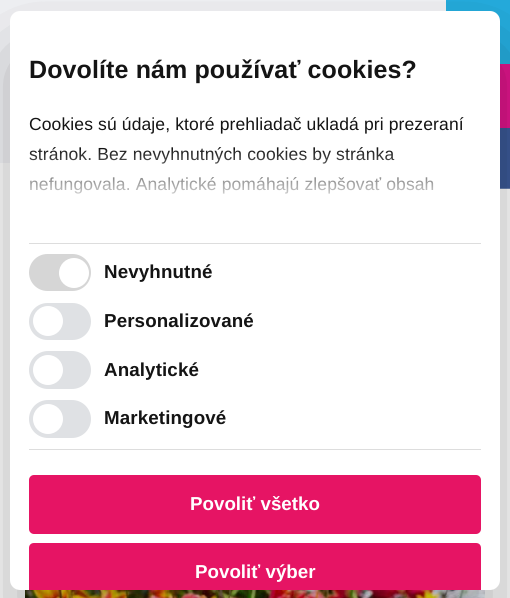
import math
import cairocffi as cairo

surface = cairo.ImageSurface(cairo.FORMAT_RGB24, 510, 598)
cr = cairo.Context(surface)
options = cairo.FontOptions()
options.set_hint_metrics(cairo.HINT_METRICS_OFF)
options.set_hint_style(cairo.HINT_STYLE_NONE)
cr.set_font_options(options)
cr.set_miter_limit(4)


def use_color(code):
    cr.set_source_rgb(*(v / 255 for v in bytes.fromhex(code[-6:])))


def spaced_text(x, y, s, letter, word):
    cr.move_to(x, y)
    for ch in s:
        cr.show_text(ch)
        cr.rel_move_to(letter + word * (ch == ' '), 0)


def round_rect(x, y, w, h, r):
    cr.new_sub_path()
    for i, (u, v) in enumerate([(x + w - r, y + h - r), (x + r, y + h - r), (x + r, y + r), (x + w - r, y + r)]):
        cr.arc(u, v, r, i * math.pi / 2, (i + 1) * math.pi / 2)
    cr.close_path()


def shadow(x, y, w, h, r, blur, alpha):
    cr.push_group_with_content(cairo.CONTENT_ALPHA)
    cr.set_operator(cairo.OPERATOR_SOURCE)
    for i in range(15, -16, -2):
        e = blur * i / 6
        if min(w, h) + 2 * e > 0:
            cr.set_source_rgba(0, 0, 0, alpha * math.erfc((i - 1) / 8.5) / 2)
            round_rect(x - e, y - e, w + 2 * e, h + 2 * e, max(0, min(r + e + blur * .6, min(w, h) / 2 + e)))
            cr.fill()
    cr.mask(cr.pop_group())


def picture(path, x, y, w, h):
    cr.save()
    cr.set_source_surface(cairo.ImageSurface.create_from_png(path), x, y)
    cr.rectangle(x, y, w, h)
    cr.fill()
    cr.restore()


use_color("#ffffff")
cr.paint()
use_color("#f4f5f8")
cr.rectangle(0, 0, 446, 163)
cr.fill()
picture("img1.png", 25, 590, 460, 8)
use_color("#25aee0")
cr.rectangle(446, 0, 64, 64)
cr.fill()
use_color("#e2148c")
cr.rectangle(500, 64, 10, 64)
cr.fill()
picture("img2.png", 500, 128, 10, 61)
use_color("#000000")
shadow(10, 51, 490, 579, 10, 42.5, 0.3)
use_color("#ffffff")
round_rect(10, 11, 490, 579, 10)
cr.fill()
cr.select_font_face("Liberation Sans", cairo.FONT_SLANT_NORMAL, cairo.FONT_WEIGHT_BOLD)
cr.set_font_size(25)
use_color("#141414")
spaced_text(29, 78, "Dovolíte nám používať cookies?", 0.12, 0)
cr.select_font_face("Liberation Sans")
cr.set_font_size(17.5)
spaced_text(29, 130, "Cookies sú údaje, ktoré prehliadač ukladá pri prezeraní", 0.12, 0)
spaced_text(29, 160, "stránok. Bez nevyhnutných cookies by stránka", 0.12, 0)
spaced_text(29, 190, "nefungovala. Analytické pomáhajú zlepšovať obsah", 0.12, 0)
gradient = cairo.LinearGradient(255, 242, 255, 148)
gradient.add_color_stop_rgba(0, 1, 1, 1, 1)
gradient.add_color_stop_rgba(0.5, 1, 1, 1, 0.8)
gradient.add_color_stop_rgba(1, 1, 1, 1, 0)
cr.set_source(gradient)
cr.rectangle(29, 149, 405, 45)
cr.fill()
use_color("#dddddd")
cr.rectangle(29, 243, 452, 1)
cr.fill()
cr.rectangle(29, 449, 452, 1)
cr.fill()
use_color("#d6d6d6")
round_rect(29, 254, 62, 37, 18.5)
cr.fill()
use_color("#ffffff")
cr.arc(74, 273, 15, 0, 2 * math.pi)
cr.fill()
cr.select_font_face("Liberation Sans", cairo.FONT_SLANT_NORMAL, cairo.FONT_WEIGHT_BOLD)
cr.set_font_size(18.75)
use_color("#141414")
spaced_text(104, 278, "Nevyhnutné", 0.12, 0)
use_color("#dfe1e4")
round_rect(29, 303, 62, 37, 18.5)
cr.fill()
use_color("#ffffff")
cr.arc(48, 321, 15, 0, 2 * math.pi)
cr.fill()
use_color("#141414")
spaced_text(104, 327, "Personalizované", 0.12, 0)
use_color("#dfe1e4")
round_rect(29, 351, 62, 38, 19)
cr.fill()
use_color("#ffffff")
cr.arc(48, 370, 15, 0, 2 * math.pi)
cr.fill()
use_color("#141414")
spaced_text(104, 376, "Analytické", 0.12, 0)
use_color("#dfe1e4")
round_rect(29, 400, 62, 38, 19)
cr.fill()
use_color("#ffffff")
cr.arc(48, 419, 15, 0, 2 * math.pi)
cr.fill()
use_color("#141414")
spaced_text(104, 424, "Marketingové", 0.12, 0)
use_color("#e61464")
round_rect(29, 475, 452, 59, 5)
cr.fill()
use_color("#ffffff")
cr.move_to(190, 510)
cr.show_text("Povoliť všetko")
use_color("#e61464")
cr.new_path()
cr.move_to(34, 543)
cr.line_to(476, 543)
cr.curve_to(479, 543, 481, 545, 481, 548)
cr.line_to(481, 590)
cr.line_to(29, 590)
cr.line_to(29, 548)
cr.curve_to(29, 545, 31, 543, 34, 543)
cr.close_path()
cr.fill()
use_color("#ffffff")
cr.move_to(195, 578)
cr.show_text("Povoliť výber")
surface.write_to_png("result.png")
